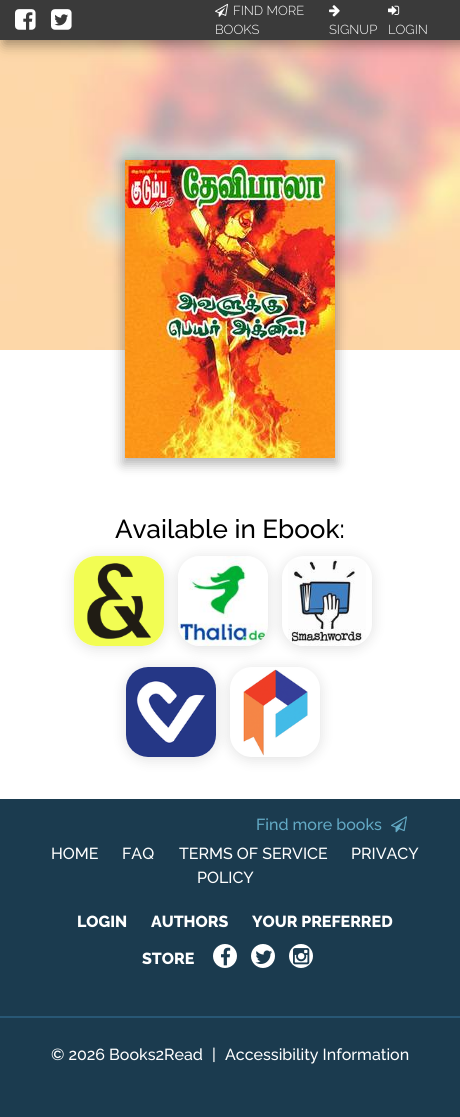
import math
import cairocffi as cairo

surface = cairo.ImageSurface(cairo.FORMAT_RGB24, 460, 1117)
cr = cairo.Context(surface)
options = cairo.FontOptions()
options.set_hint_metrics(cairo.HINT_METRICS_OFF)
options.set_hint_style(cairo.HINT_STYLE_NONE)
cr.set_font_options(options)
cr.set_miter_limit(4)


def use_color(code):
    cr.set_source_rgb(*(v / 255 for v in bytes.fromhex(code[-6:])))


def round_rect(x, y, w, h, r):
    cr.new_sub_path()
    for i, (u, v) in enumerate([(x + w - r, y + h - r), (x + r, y + h - r), (x + r, y + r), (x + w - r, y + r)]):
        cr.arc(u, v, r, i * math.pi / 2, (i + 1) * math.pi / 2)
    cr.close_path()


def shadow(x, y, w, h, r, blur, alpha):
    cr.push_group_with_content(cairo.CONTENT_ALPHA)
    cr.set_operator(cairo.OPERATOR_SOURCE)
    for i in range(15, -16, -2):
        e = blur * i / 6
        if min(w, h) + 2 * e > 0:
            cr.set_source_rgba(0, 0, 0, alpha * math.erfc((i - 1) / 8.5) / 2)
            round_rect(x - e, y - e, w + 2 * e, h + 2 * e, max(0, min(r + e + blur * .6, min(w, h) / 2 + e)))
            cr.fill()
    cr.mask(cr.pop_group())


def picture(path, x, y, w, h):
    cr.save()
    cr.set_source_surface(cairo.ImageSurface.create_from_png(path), x, y)
    cr.rectangle(x, y, w, h)
    cr.fill()
    cr.restore()


use_color("#ffffff")
cr.paint()
picture("img1.png", 0, 40, 460, 310)
use_color("#000000")
shadow(4, 4, 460, 40, 0, 7, 0.4)
use_color("#3a3a3a")
cr.rectangle(0, 0, 460, 40)
cr.fill()
picture("img2.png", 15, 9, 21, 21)
picture("img3.png", 51, 9, 21, 21)
picture("img4.png", 215, 3, 13, 14)
cr.select_font_face("Raleway Light")
cr.set_font_size(13)
use_color("#ffffff")
cr.move_to(233, 15)
cr.show_text("FIND MORE")
cr.move_to(215, 34)
cr.show_text("BOOKS")
picture("img5.png", 329, 5, 11, 12)
cr.move_to(329, 34)
cr.show_text("SIGNUP")
picture("img6.png", 388, 5, 12, 10)
cr.move_to(388, 34)
cr.show_text("LOGIN")
use_color("#000000")
shadow(123, 162, 214, 302, 0, 6, 0.3)
picture("img7.png", 125, 160, 210, 298)
cr.select_font_face("Raleway Medium")
cr.set_font_size(26)
use_color("#000000")
cr.move_to(115, 538)
cr.show_text("Available in Ebook:")
use_color("#000000")
shadow(72, 556, 94, 94, 24, 6, 0.1)
use_color("#ffffff")
round_rect(74, 556, 90, 90, 22)
cr.fill()
picture("img8.png", 74, 556, 90, 90)
use_color("#000000")
shadow(176, 556, 94, 94, 24, 6, 0.1)
use_color("#ffffff")
round_rect(178, 556, 90, 90, 22)
cr.fill()
picture("img9.png", 178, 556, 90, 90)
use_color("#000000")
shadow(280, 556, 94, 94, 24, 6, 0.1)
use_color("#ffffff")
round_rect(282, 556, 90, 90, 22)
cr.fill()
picture("img10.png", 288, 559, 78, 87)
use_color("#000000")
shadow(124, 667, 94, 94, 24, 6, 0.1)
use_color("#ffffff")
round_rect(126, 667, 90, 90, 22)
cr.fill()
picture("img11.png", 126, 667, 90, 90)
use_color("#000000")
shadow(228, 667, 94, 94, 24, 6, 0.1)
use_color("#ffffff")
round_rect(230, 667, 90, 90, 22)
cr.fill()
picture("img12.png", 243, 669, 65, 87)
use_color("#1b3b4f")
cr.rectangle(0, 799, 460, 318)
cr.fill()
cr.set_font_size(16)
use_color("#63aac5")
cr.move_to(256, 830)
cr.show_text("Find more books")
picture("img13.png", 391, 816, 16, 17)
use_color("#ffffff")
cr.move_to(51, 859)
cr.show_text("HOME")
cr.move_to(122, 859)
cr.show_text("FAQ")
cr.move_to(179, 859)
cr.show_text("TERMS OF SERVICE")
cr.move_to(351, 859)
cr.show_text("PRIVACY")
cr.move_to(197, 883)
cr.show_text("POLICY")
cr.select_font_face("Raleway ExtraBold")
cr.move_to(77, 927)
cr.show_text("LOGIN")
cr.move_to(151, 927)
cr.show_text("AUTHORS")
cr.move_to(252, 927)
cr.show_text("YOUR PREFERRED")
cr.move_to(142, 964)
cr.show_text("STORE")
cr.new_path()
cr.arc(225, 956, 12, 0, 2 * math.pi)
cr.fill()
picture("img14.png", 221, 947, 10, 19)
cr.arc(263, 956, 12, 0, 2 * math.pi)
cr.fill()
picture("img15.png", 255, 950, 17, 14)
cr.arc(301, 956, 12, 0, 2 * math.pi)
cr.fill()
picture("img16.png", 293, 948, 17, 17)
use_color("#285775")
cr.rectangle(0, 1016, 460, 2)
cr.fill()
cr.select_font_face("Raleway Medium")
use_color("#ffffff")
cr.move_to(51, 1060)
cr.show_text("© 2026 Books2Read")
cr.move_to(212, 1060)
cr.show_text("|")
cr.move_to(225, 1060)
cr.show_text("Accessibility Information")
surface.write_to_png("result.png")
